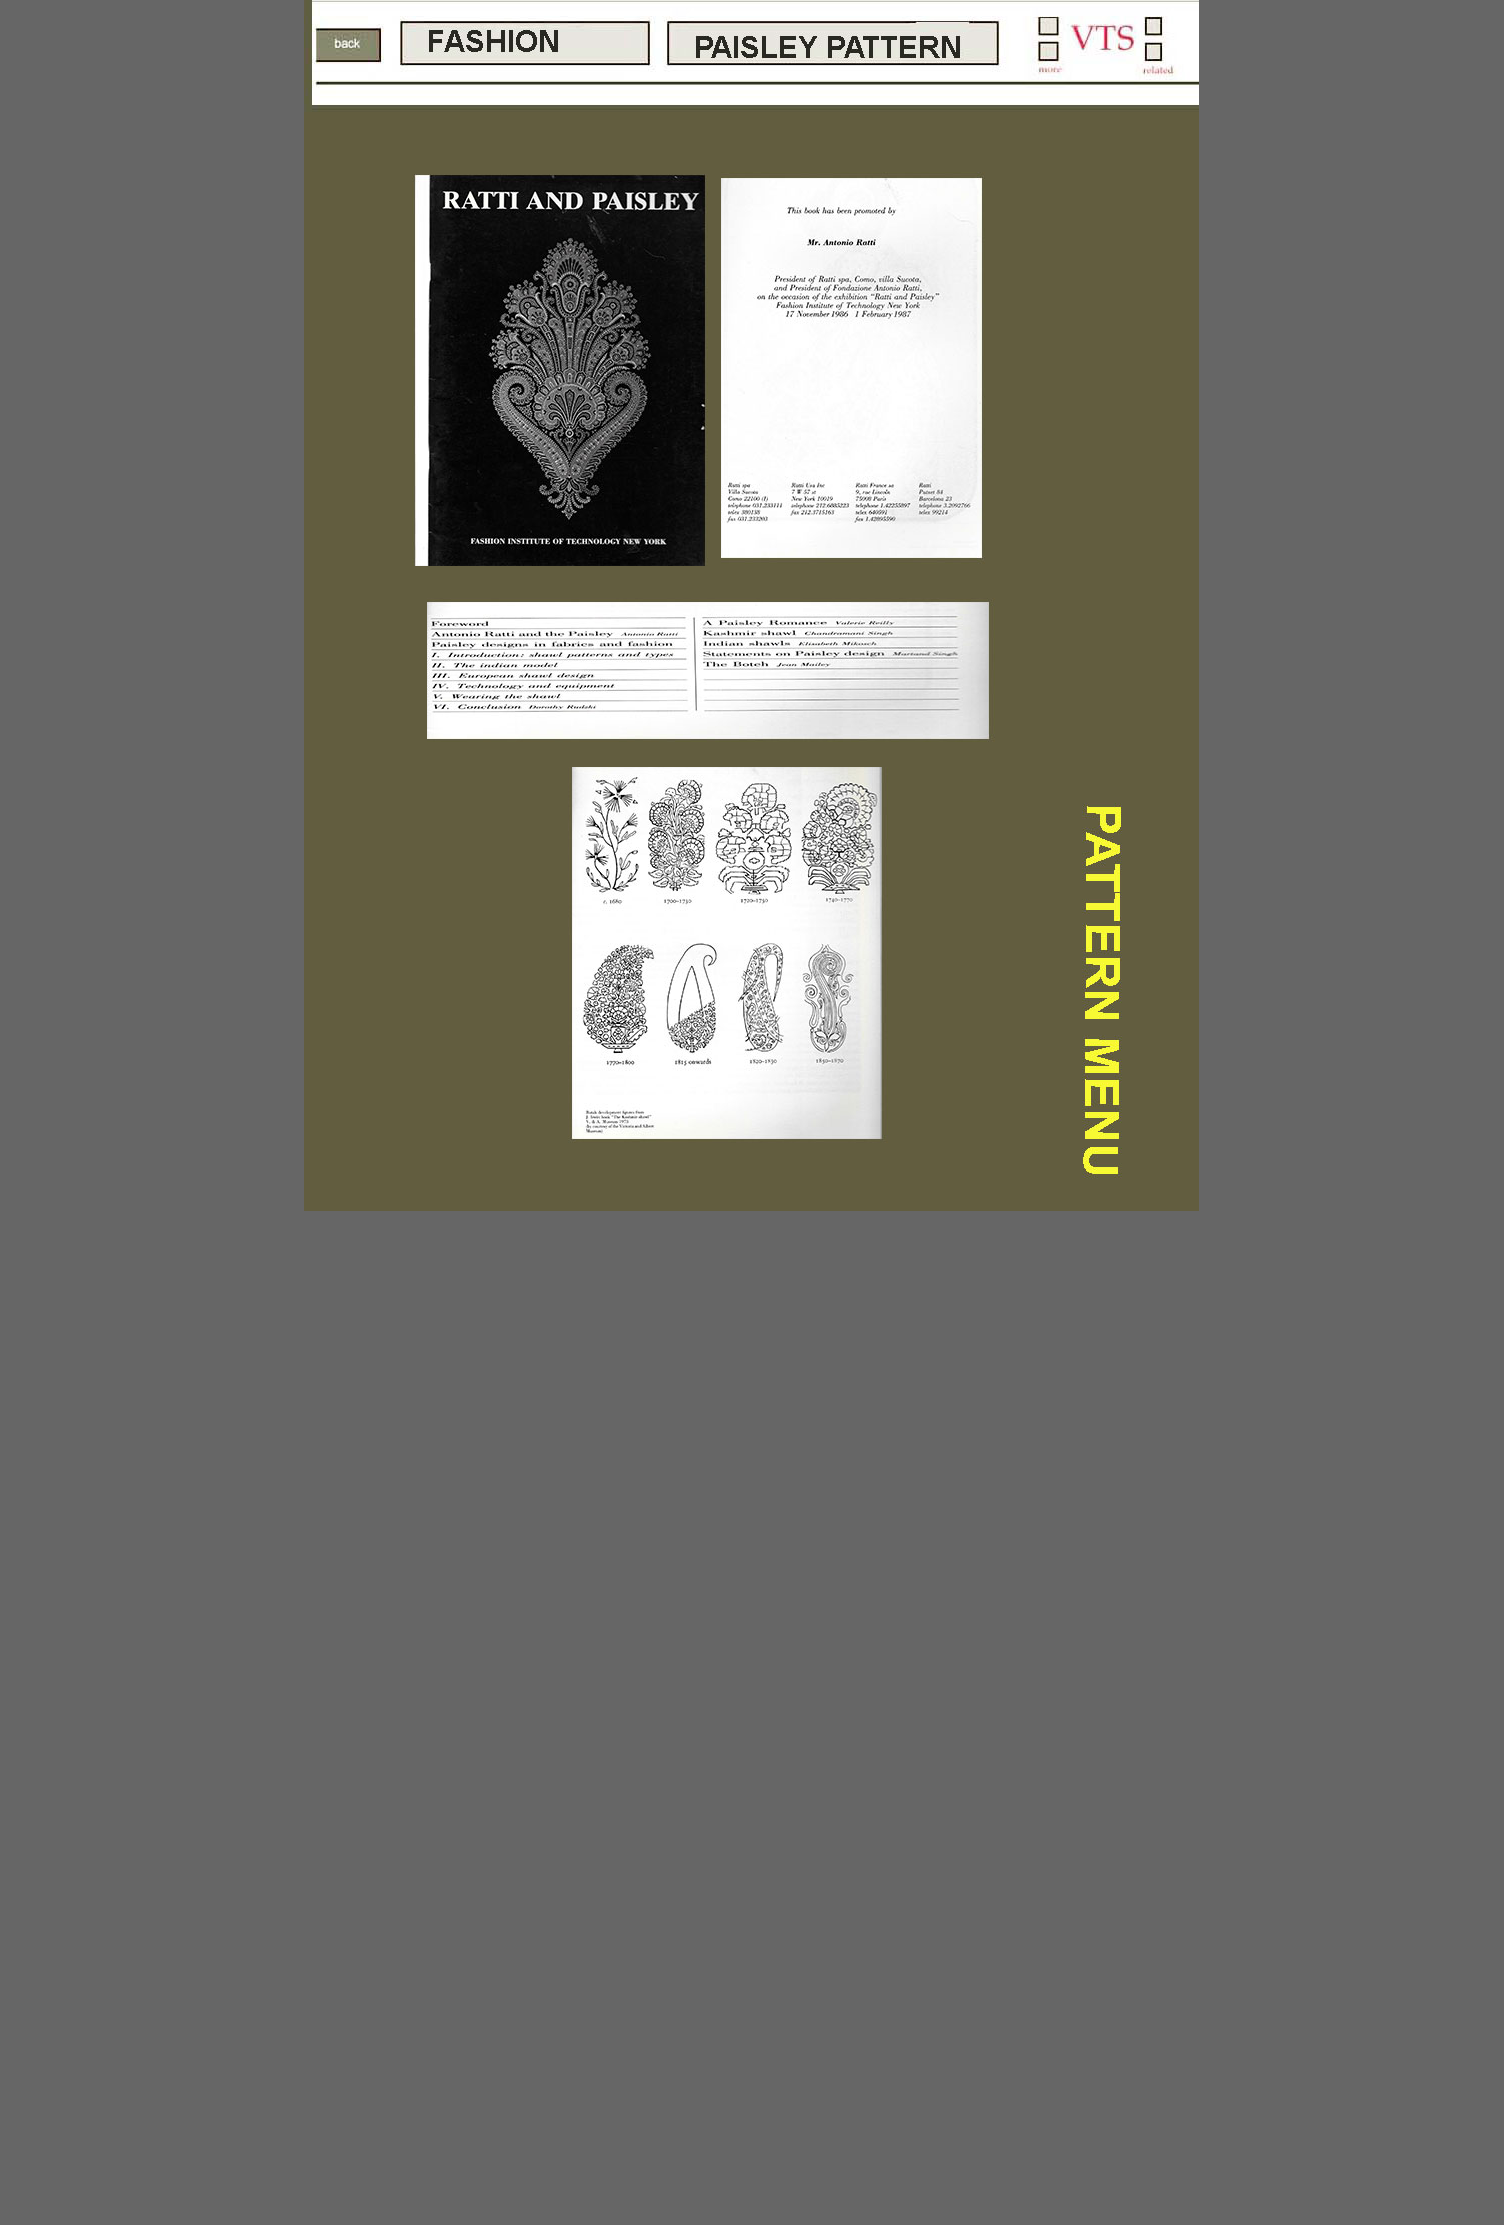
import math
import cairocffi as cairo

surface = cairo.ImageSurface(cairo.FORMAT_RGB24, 1504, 2225)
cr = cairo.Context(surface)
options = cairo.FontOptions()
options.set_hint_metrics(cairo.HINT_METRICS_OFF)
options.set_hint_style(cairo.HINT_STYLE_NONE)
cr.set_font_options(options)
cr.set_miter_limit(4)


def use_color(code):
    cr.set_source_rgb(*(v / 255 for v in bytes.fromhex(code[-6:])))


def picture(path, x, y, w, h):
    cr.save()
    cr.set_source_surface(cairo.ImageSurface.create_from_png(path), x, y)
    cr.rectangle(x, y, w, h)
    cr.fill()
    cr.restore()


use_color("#666666")
cr.paint()
picture("img1.png", 304, 0, 358, 126)
picture("img2.png", 662, 0, 537, 126)
use_color("#625d3f")
cr.rectangle(304, 126, 4, 472)
cr.fill()
picture("img3.png", 308, 126, 410, 470)
cr.rectangle(718, 126, 481, 14)
cr.fill()
cr.rectangle(718, 140, 3, 458)
cr.fill()
picture("img4.png", 721, 140, 478, 456)
cr.rectangle(308, 596, 410, 2)
cr.fill()
cr.rectangle(721, 596, 478, 2)
cr.fill()
cr.rectangle(304, 598, 3, 169)
cr.fill()
picture("img5.png", 307, 598, 892, 165)
cr.rectangle(307, 763, 655, 4)
cr.fill()
picture("img6.png", 962, 763, 237, 448)
cr.rectangle(304, 767, 260, 444)
cr.fill()
cr.rectangle(564, 767, 4, 444)
cr.fill()
picture("img7.png", 568, 767, 394, 444)
surface.write_to_png("result.png")
